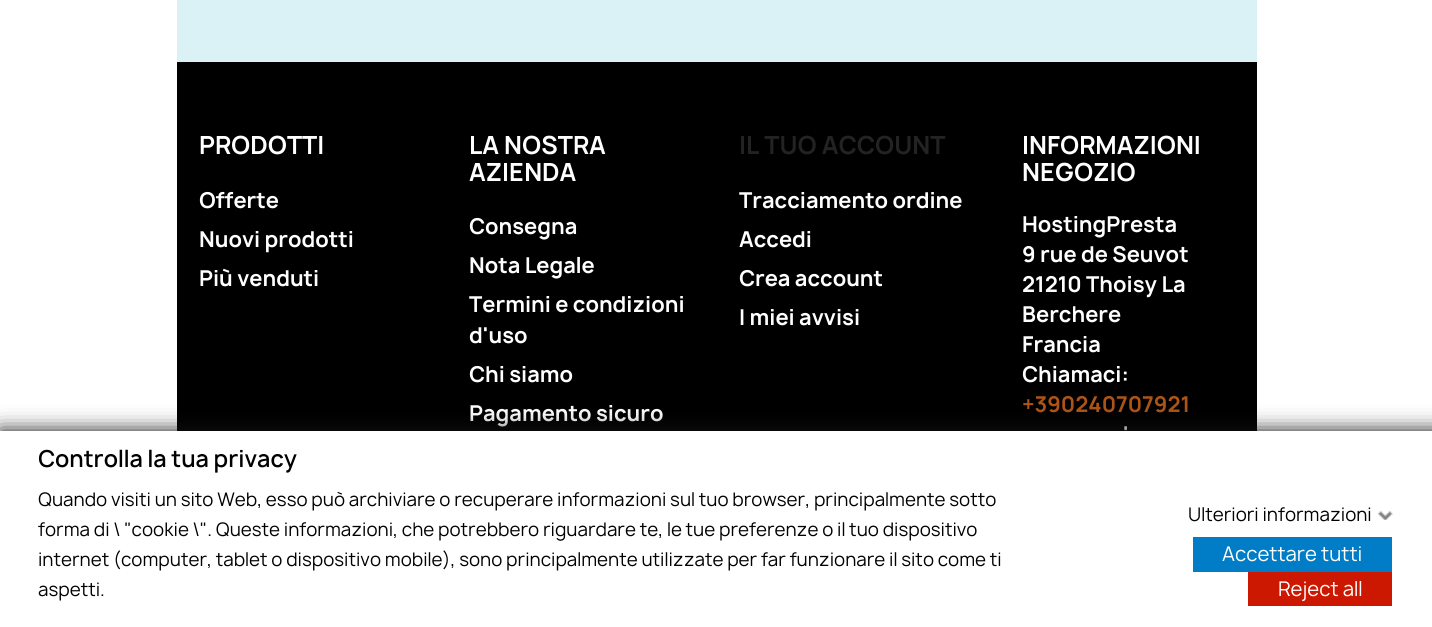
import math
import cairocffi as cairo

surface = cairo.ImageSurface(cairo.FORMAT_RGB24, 1432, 627)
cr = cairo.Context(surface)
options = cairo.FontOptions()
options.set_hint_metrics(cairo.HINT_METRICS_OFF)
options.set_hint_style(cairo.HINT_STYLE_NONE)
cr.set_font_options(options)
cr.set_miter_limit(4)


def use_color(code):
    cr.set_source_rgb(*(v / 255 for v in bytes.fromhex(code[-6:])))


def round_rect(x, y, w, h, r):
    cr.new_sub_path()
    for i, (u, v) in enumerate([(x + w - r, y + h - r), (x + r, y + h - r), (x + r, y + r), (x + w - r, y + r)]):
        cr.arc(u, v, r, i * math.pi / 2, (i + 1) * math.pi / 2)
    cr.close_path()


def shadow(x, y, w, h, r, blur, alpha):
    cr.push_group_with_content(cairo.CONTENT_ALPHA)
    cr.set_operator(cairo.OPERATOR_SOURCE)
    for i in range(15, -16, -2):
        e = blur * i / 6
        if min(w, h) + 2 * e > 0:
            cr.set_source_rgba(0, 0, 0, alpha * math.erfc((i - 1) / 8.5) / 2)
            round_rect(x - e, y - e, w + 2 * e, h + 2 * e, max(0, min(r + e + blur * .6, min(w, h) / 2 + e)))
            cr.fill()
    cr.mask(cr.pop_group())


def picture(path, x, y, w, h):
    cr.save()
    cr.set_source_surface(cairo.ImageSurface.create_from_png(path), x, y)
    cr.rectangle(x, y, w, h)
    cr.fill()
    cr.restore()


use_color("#ffffff")
cr.paint()
use_color("#daf2f6")
cr.rectangle(177, 0, 1080, 62)
cr.fill()
use_color("#000000")
cr.rectangle(177, 62, 1080, 369)
cr.fill()
cr.select_font_face("Manrope", cairo.FONT_SLANT_NORMAL, cairo.FONT_WEIGHT_BOLD)
cr.set_font_size(24)
use_color("#ffffff")
cr.move_to(199, 154)
cr.show_text("PRODOTTI")
cr.set_font_size(21)
cr.move_to(199, 208)
cr.show_text("Offerte")
cr.move_to(199, 247)
cr.show_text("Nuovi prodotti")
cr.move_to(199, 286)
cr.show_text("Più venduti")
cr.set_font_size(24)
cr.move_to(469, 154)
cr.show_text("LA NOSTRA")
cr.move_to(469, 181)
cr.show_text("AZIENDA")
cr.set_font_size(21)
cr.move_to(469, 234)
cr.show_text("Consegna")
cr.move_to(469, 273)
cr.show_text("Nota Legale")
cr.move_to(469, 312)
cr.show_text("Termini e condizioni")
cr.move_to(469, 343)
cr.show_text("d'uso")
cr.move_to(469, 382)
cr.show_text("Chi siamo")
cr.move_to(469, 421)
cr.show_text("Pagamento sicuro")
cr.set_font_size(24)
use_color("#232323")
cr.move_to(739, 154)
cr.show_text("IL TUO ACCOUNT")
cr.set_font_size(21)
use_color("#ffffff")
cr.move_to(739, 208)
cr.show_text("Tracciamento ordine")
cr.move_to(739, 247)
cr.show_text("Accedi")
cr.move_to(739, 286)
cr.show_text("Crea account")
cr.move_to(739, 325)
cr.show_text("I miei avvisi")
cr.set_font_size(24)
cr.move_to(1022, 154)
cr.show_text("INFORMAZIONI")
cr.move_to(1022, 181)
cr.show_text("NEGOZIO")
cr.set_font_size(21)
cr.move_to(1022, 232)
cr.show_text("HostingPresta")
cr.move_to(1022, 262)
cr.show_text("9 rue de Seuvot")
cr.move_to(1022, 292)
cr.show_text("21210 Thoisy La")
cr.move_to(1022, 322)
cr.show_text("Berchere")
cr.move_to(1022, 352)
cr.show_text("Francia")
cr.move_to(1022, 382)
cr.show_text("Chiamaci:")
use_color("#ae5415")
cr.move_to(1022, 412)
cr.show_text("+390240707921")
use_color("#ffffff")
cr.move_to(1123, 442)
cr.show_text("'")
use_color("#121212")
shadow(0, 431, 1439, 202, 0, 10.5, 1)
use_color("#ffffff")
cr.rectangle(0, 431, 1432, 196)
cr.fill()
cr.select_font_face("Manrope SemiBold")
cr.set_font_size(22.5)
use_color("#000000")
cr.move_to(38, 467)
cr.show_text("Controlla la tua privacy")
cr.select_font_face("Manrope")
cr.set_font_size(18)
cr.move_to(38, 506)
cr.show_text("Quando visiti un sito Web, esso può archiviare o recuperare informazioni sul tuo browser, principalmente sotto")
cr.move_to(38, 536)
cr.show_text("forma di \\ \"cookie \\\". Queste informazioni, che potrebbero riguardare te, le tue preferenze o il tuo dispositivo")
cr.move_to(38, 566)
cr.show_text("internet (computer, tablet o dispositivo mobile), sono principalmente utilizzate per far funzionare il sito come ti")
cr.move_to(38, 596)
cr.show_text("aspetti.")
cr.move_to(1188, 521)
cr.show_text("Ulteriori informazioni")
picture("img1.png", 1378, 511, 15, 9)
use_color("#007dc6")
cr.rectangle(1193, 537, 199, 35)
cr.fill()
cr.set_font_size(19.5)
use_color("#ffffff")
cr.move_to(1222, 561)
cr.show_text("Accettare tutti")
use_color("#cc1800")
cr.rectangle(1248, 572, 144, 34)
cr.fill()
use_color("#ffffff")
cr.move_to(1278, 596)
cr.show_text("Reject all")
surface.write_to_png("result.png")
